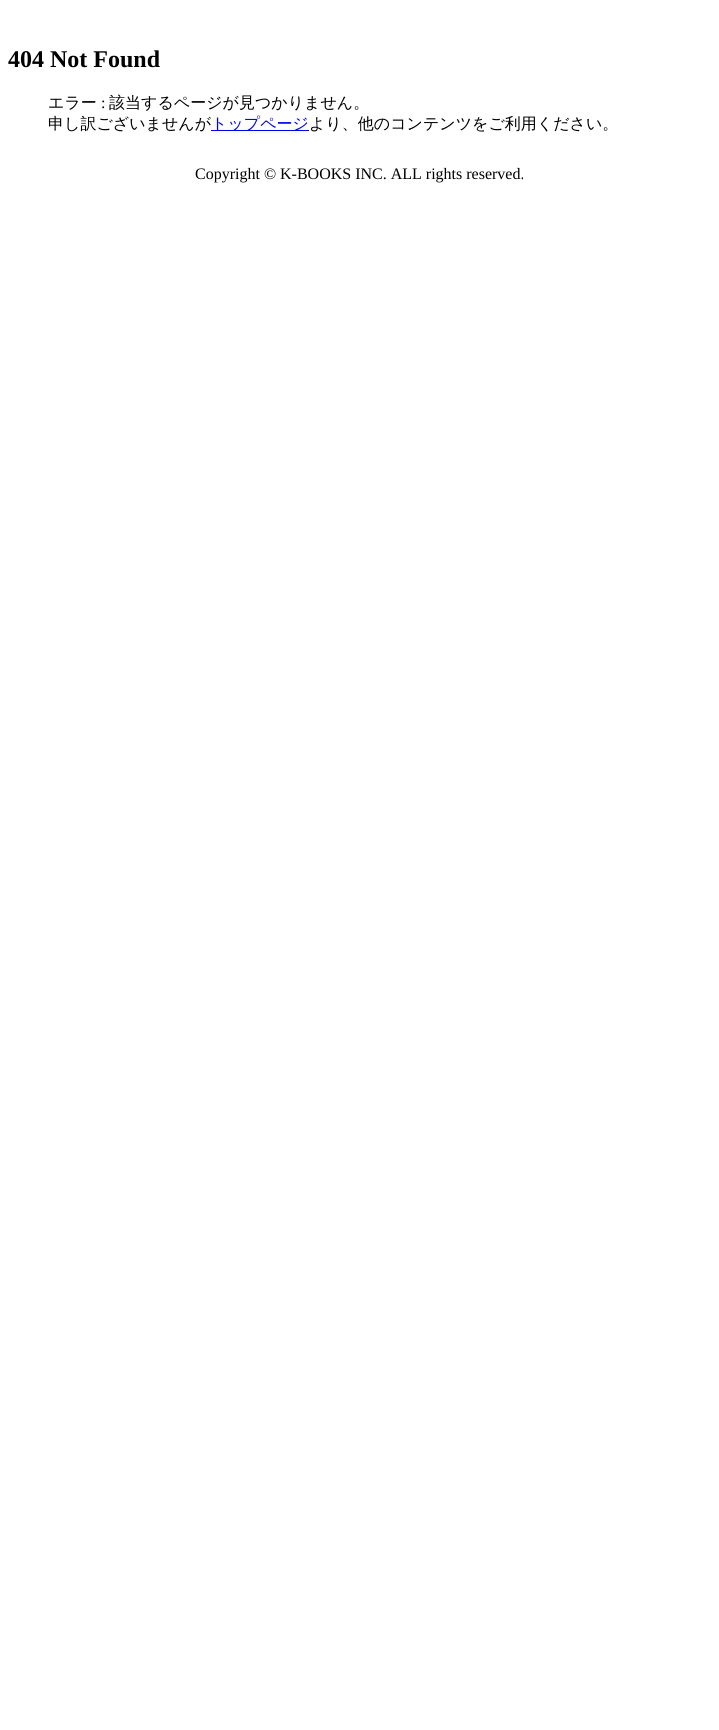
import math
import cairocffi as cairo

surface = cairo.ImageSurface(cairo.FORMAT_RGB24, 719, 1730)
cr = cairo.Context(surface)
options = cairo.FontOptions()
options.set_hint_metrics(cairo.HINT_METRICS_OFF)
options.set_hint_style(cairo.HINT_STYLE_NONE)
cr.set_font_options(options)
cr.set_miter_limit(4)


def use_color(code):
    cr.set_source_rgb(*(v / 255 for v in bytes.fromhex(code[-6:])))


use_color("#ffffff")
cr.paint()
cr.select_font_face("Liberation Serif", cairo.FONT_SLANT_NORMAL, cairo.FONT_WEIGHT_BOLD)
cr.set_font_size(24)
use_color("#000000")
cr.move_to(8, 67)
cr.show_text("404 Not Found")
cr.select_font_face("WenQuanYi Zen Hei Medium")
cr.set_font_size(16)
cr.move_to(48, 108)
cr.show_text("エラー")
cr.select_font_face("Liberation Serif")
cr.move_to(101, 108)
cr.show_text(":")
cr.select_font_face("WenQuanYi Zen Hei Medium")
cr.move_to(109, 108)
cr.show_text("該当するページが見つかりません。")
cr.move_to(48, 129)
cr.show_text("申し訳ございませんが")
use_color("#0000ee")
cr.rectangle(211, 130, 98, 1)
cr.fill()
cr.move_to(211, 129)
cr.show_text("トップページ")
use_color("#000000")
cr.move_to(309, 129)
cr.show_text("より、他のコンテンツをご利用ください。")
cr.select_font_face("Liberation Serif")
cr.move_to(195, 179)
cr.show_text("Copyright © K-BOOKS INC. ALL rights reserved.")
surface.write_to_png("result.png")
